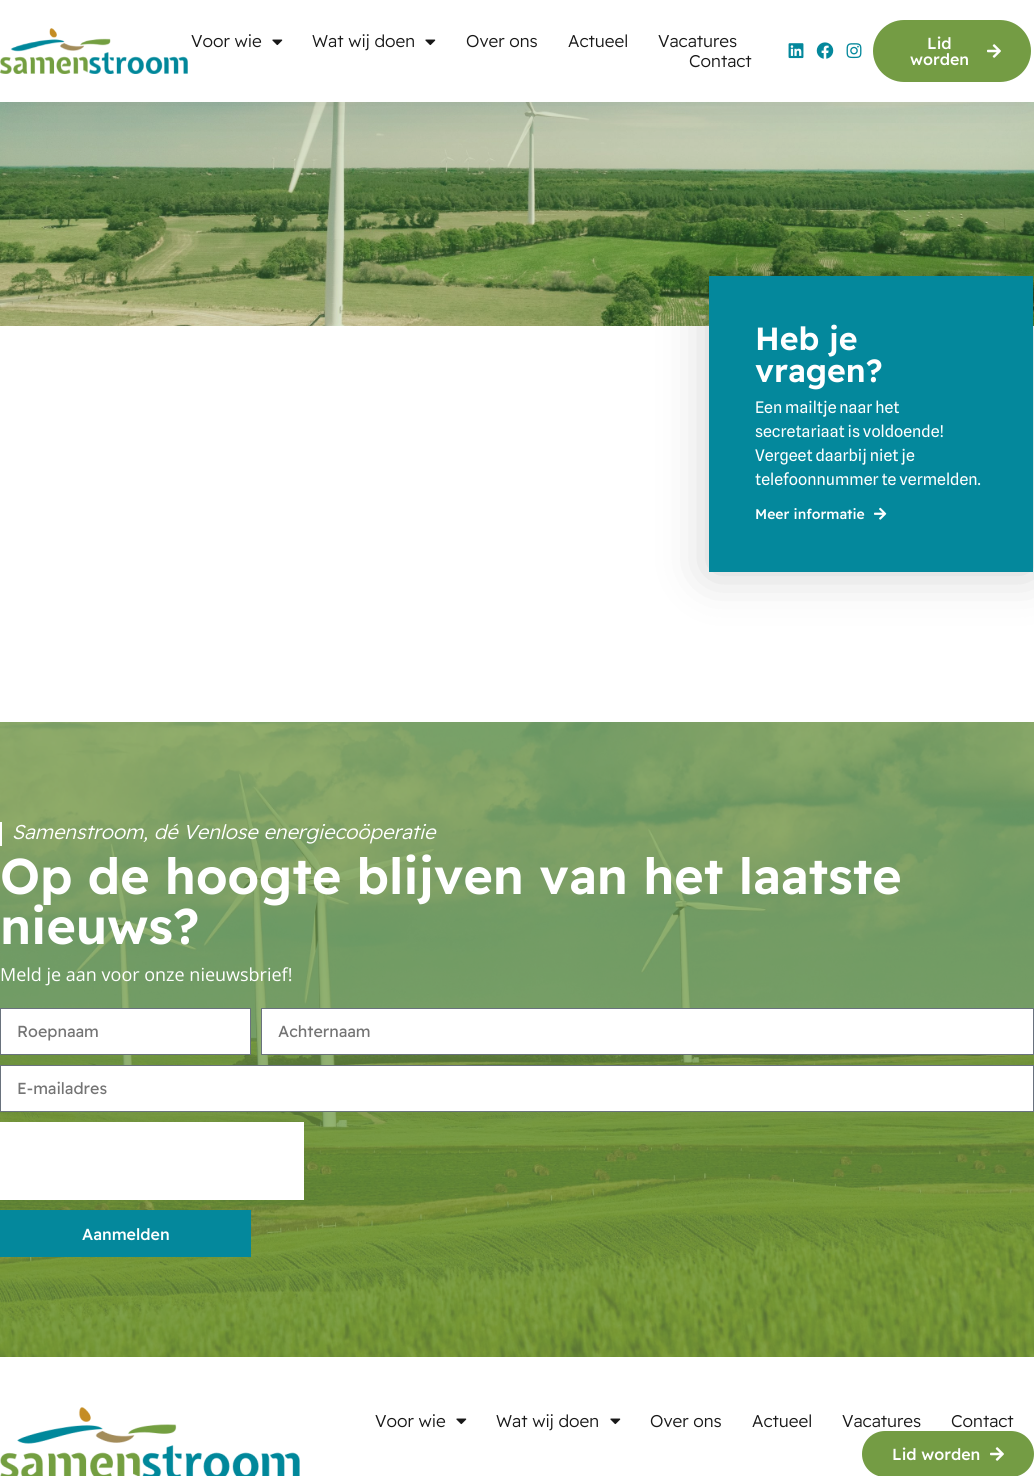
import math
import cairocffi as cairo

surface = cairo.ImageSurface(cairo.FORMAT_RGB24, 1034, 1476)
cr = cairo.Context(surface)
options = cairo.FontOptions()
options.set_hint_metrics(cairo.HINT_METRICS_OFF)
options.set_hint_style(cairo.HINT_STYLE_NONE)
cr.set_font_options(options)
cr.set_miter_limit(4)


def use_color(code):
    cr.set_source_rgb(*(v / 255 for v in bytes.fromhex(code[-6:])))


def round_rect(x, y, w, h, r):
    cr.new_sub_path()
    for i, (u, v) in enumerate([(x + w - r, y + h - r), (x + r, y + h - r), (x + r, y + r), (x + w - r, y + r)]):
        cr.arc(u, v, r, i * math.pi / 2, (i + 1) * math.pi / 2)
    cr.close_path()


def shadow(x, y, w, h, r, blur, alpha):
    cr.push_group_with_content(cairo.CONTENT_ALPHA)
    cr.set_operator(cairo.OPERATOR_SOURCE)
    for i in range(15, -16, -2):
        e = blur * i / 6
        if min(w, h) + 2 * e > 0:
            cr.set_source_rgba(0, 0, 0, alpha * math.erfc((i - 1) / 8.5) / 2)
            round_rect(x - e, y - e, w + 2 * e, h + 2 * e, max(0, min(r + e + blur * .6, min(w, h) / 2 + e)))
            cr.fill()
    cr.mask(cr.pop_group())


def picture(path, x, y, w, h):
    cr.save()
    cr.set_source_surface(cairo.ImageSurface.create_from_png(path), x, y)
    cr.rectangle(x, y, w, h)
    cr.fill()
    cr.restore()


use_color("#ffffff")
cr.paint()
picture("img7.png", 0, 102, 1034, 224)
use_color("#000000")
shadow(0, 0, 1034, 102, 0, 25, 0.1)
use_color("#ffffff")
cr.rectangle(0, 0, 1034, 102)
cr.fill()
picture("img1.png", 0, 28, 188, 46)
cr.select_font_face("Readex Pro Light")
cr.set_font_size(17)
use_color("#181818")
cr.move_to(191, 47)
cr.show_text("Voor wie")
picture("img2.png", 272, 39, 11, 7)
cr.move_to(312, 47)
cr.show_text("Wat wij doen")
picture("img2.png", 425, 39, 11, 7)
cr.move_to(466, 47)
cr.show_text("Over ons")
cr.move_to(568, 47)
cr.show_text("Actueel")
cr.move_to(658, 47)
cr.show_text("Vacatures")
cr.move_to(689, 67)
cr.show_text("Contact")
picture("img3.png", 788, 43, 16, 16)
picture("img4.png", 816, 42, 18, 17)
picture("img5.png", 846, 43, 16, 16)
use_color("#749c44")
round_rect(873, 20, 158, 62, 31)
cr.fill()
cr.select_font_face("Readex Pro Medium")
cr.set_font_size(16)
use_color("#ffffff")
cr.move_to(927, 49)
cr.show_text("Lid")
cr.move_to(910, 65)
cr.show_text("worden")
picture("img6.png", 987, 44, 14, 14)
use_color("#000000")
shadow(709, 276, 324, 296, 0, 25, 0.2)
use_color("#04889c")
cr.rectangle(709, 276, 324, 296)
cr.fill()
cr.select_font_face("Readex Pro SemiBold")
cr.set_font_size(32)
use_color("#ffffff")
cr.move_to(755, 350)
cr.show_text("Heb je")
cr.move_to(755, 382)
cr.show_text("vragen?")
cr.select_font_face("Spline Sans")
cr.set_font_size(16)
cr.move_to(755, 413)
cr.show_text("Een mailtje naar het")
cr.move_to(755, 437)
cr.show_text("secretariaat is voldoende!")
cr.move_to(755, 461)
cr.show_text("Vergeet daarbij niet je")
cr.move_to(755, 485)
cr.show_text("telefoonnummer te vermelden.")
cr.select_font_face("Readex Pro Medium")
cr.set_font_size(14)
cr.move_to(755, 519)
cr.show_text("Meer informatie")
picture("img8.png", 874, 507, 13, 13)
picture("img9.png", 0, 722, 1034, 635)
cr.rectangle(0, 822, 2, 24)
cr.fill()
cr.select_font_face("Readex Pro Light", cairo.FONT_SLANT_ITALIC)
cr.set_font_size(20)
cr.move_to(12, 839)
cr.show_text("Samenstroom, dé Venlose energiecoöperatie")
cr.select_font_face("Readex Pro SemiBold")
cr.set_font_size(50)
cr.move_to(0, 894)
cr.show_text("Op de hoogte blijven van het laatste")
cr.move_to(0, 944)
cr.show_text("nieuws?")
cr.select_font_face("Open Sans")
cr.set_font_size(18)
cr.move_to(0, 981)
cr.show_text("Meld je aan voor onze nieuwsbrief!")
cr.rectangle(0.5, 1008.5, 250, 46)
cr.fill_preserve()
use_color("#69727d")
cr.set_line_width(1)
cr.stroke()
cr.select_font_face("Readex Pro")
cr.set_font_size(16)
use_color("#747474")
cr.move_to(17, 1037)
cr.show_text("Roepnaam")
use_color("#ffffff")
cr.rectangle(261.5, 1008.5, 772, 46)
cr.fill_preserve()
use_color("#69727d")
cr.stroke()
use_color("#747474")
cr.move_to(278, 1037)
cr.show_text("Achternaam")
use_color("#ffffff")
cr.rectangle(0.5, 1065.5, 1033, 46)
cr.fill_preserve()
use_color("#69727d")
cr.stroke()
use_color("#747474")
cr.move_to(17, 1094)
cr.show_text("E-mailadres")
use_color("#ffffff")
cr.rectangle(0, 1122, 304, 78)
cr.fill()
use_color("#04889c")
cr.rectangle(0, 1210, 251, 47)
cr.fill()
cr.select_font_face("Readex Pro Medium")
use_color("#ffffff")
cr.move_to(82, 1240)
cr.show_text("Aanmelden")
picture("img10.png", 0, 1407, 300, 69)
cr.select_font_face("Readex Pro Light")
cr.set_font_size(17)
use_color("#181818")
cr.move_to(375, 1427)
cr.show_text("Voor wie")
picture("img2.png", 456, 1418, 11, 7)
cr.move_to(496, 1427)
cr.show_text("Wat wij doen")
picture("img2.png", 610, 1418, 11, 7)
cr.move_to(650, 1427)
cr.show_text("Over ons")
cr.move_to(752, 1427)
cr.show_text("Actueel")
cr.move_to(842, 1427)
cr.show_text("Vacatures")
cr.move_to(951, 1427)
cr.show_text("Contact")
use_color("#749c44")
round_rect(862, 1431, 172, 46, 23)
cr.fill()
cr.select_font_face("Readex Pro Medium")
cr.set_font_size(16)
use_color("#ffffff")
cr.move_to(892, 1460)
cr.show_text("Lid worden")
picture("img6.png", 990, 1447, 14, 14)
surface.write_to_png("result.png")
